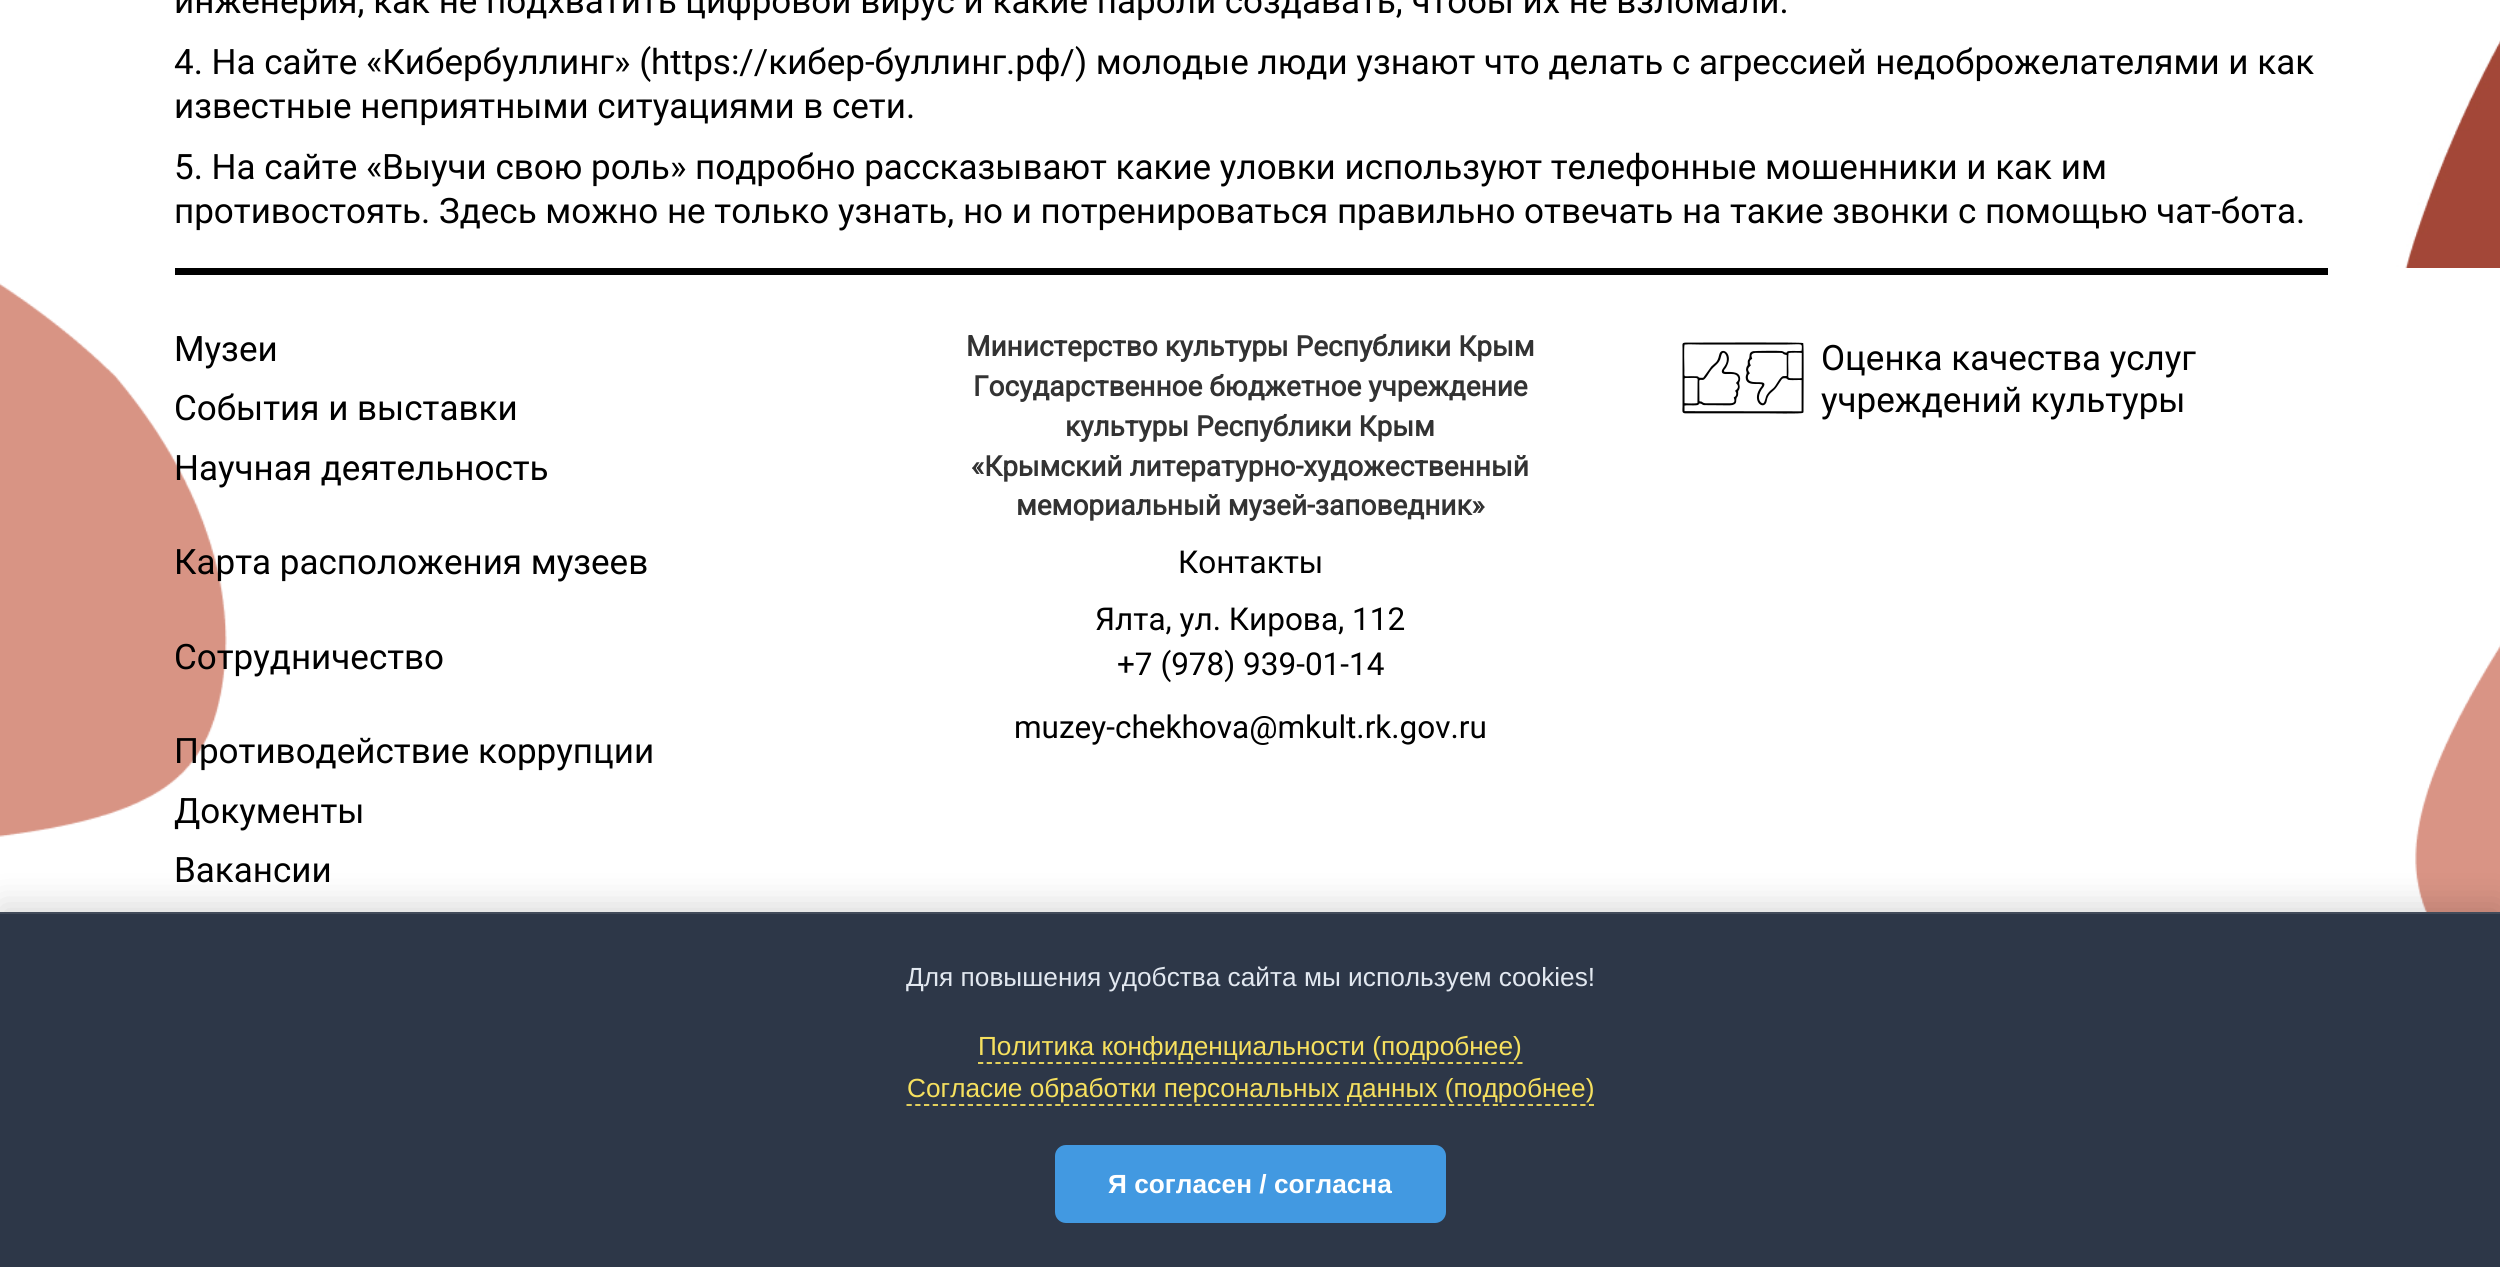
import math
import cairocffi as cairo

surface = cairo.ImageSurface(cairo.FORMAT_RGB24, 2500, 1267)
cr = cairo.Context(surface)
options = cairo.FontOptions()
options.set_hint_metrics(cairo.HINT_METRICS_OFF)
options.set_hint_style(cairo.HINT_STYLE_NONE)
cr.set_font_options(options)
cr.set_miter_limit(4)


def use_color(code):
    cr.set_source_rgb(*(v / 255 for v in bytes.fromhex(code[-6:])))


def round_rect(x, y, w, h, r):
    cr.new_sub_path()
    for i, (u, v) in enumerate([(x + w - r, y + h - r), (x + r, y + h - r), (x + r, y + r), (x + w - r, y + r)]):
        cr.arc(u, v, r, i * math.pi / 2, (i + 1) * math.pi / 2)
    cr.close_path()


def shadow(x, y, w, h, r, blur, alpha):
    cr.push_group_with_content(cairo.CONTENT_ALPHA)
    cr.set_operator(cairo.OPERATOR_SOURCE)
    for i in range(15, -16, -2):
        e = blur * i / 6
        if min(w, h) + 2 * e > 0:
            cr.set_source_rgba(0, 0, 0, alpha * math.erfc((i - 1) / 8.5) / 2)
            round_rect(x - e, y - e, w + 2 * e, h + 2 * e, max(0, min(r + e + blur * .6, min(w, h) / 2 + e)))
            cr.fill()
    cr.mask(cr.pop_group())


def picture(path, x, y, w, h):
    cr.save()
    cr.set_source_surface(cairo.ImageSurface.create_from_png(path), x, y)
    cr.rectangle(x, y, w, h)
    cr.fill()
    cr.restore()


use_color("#ffffff")
cr.paint()
picture("img1.png", 0, 40, 2500, 228)
cr.select_font_face("Roboto")
cr.set_font_size(35)
use_color("#000000")
cr.move_to(174, 13)
cr.show_text("инженерия, как не подхватить цифровой вирус и какие пароли создавать, чтобы их не взломали.")
cr.move_to(174, 74)
cr.show_text("4. На сайте «Кибербуллинг» (")
cr.move_to(651, 74)
cr.show_text("https://кибер-буллинг.рф/")
cr.move_to(1075, 74)
cr.show_text(") молодые люди узнают что делать с агрессией недоброжелателями и как")
cr.move_to(174, 118)
cr.show_text("известные неприятными ситуациями в сети.")
cr.move_to(174, 179)
cr.show_text("5. На сайте «")
cr.move_to(382, 179)
cr.show_text("Выучи свою роль")
cr.move_to(670, 179)
cr.show_text("» подробно рассказывают какие уловки используют телефонные мошенники и как им")
cr.move_to(174, 223)
cr.show_text("противостоять. Здесь можно не только узнать, но и потренироваться правильно отвечать на такие звонки с помощью чат-бота.")
picture("img2.png", 0, 283, 2500, 629)
cr.rectangle(175, 268, 2153, 7)
cr.fill()
cr.move_to(174, 361)
cr.show_text("Музеи")
cr.move_to(174, 420)
cr.show_text("События и выставки")
cr.move_to(174, 480)
cr.show_text("Научная деятельность")
cr.move_to(174, 574)
cr.show_text("Карта расположения музеев")
cr.move_to(174, 669)
cr.show_text("Сотрудничество")
cr.move_to(174, 763)
cr.show_text("Противодействие коррупции")
cr.move_to(174, 823)
cr.show_text("Документы")
cr.move_to(174, 882)
cr.show_text("Вакансии")
cr.select_font_face("Roboto", cairo.FONT_SLANT_NORMAL, cairo.FONT_WEIGHT_BOLD)
cr.set_font_size(28)
use_color("#333333")
cr.move_to(966, 356)
cr.show_text("Министерство культуры Республики Крым")
cr.move_to(973, 396)
cr.show_text("Государственное бюджетное учреждение")
cr.move_to(1065, 436)
cr.show_text("культуры Республики Крым")
cr.move_to(971, 476)
cr.show_text("«Крымский литературно-художественный")
cr.move_to(1016, 515)
cr.show_text("мемориальный музей-заповедник»")
cr.select_font_face("Roboto")
cr.set_font_size(31.5)
use_color("#000000")
cr.move_to(1178, 573)
cr.show_text("Контакты")
cr.move_to(1095, 630)
cr.show_text("Ялта, ул. Кирова, 112")
cr.move_to(1117, 675)
cr.show_text("+7 (978) 939-01-14")
cr.move_to(1014, 738)
cr.show_text("muzey-chekhova@mkult.rk.gov.ru")
picture("img3.png", 1682, 342, 122, 72)
cr.set_font_size(35)
cr.move_to(1821, 370)
cr.show_text("Оценка качества услуг")
cr.move_to(1821, 412)
cr.show_text("учреждений культуры")
use_color("#000000")
shadow(0, 905, 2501, 355, 0, 17.5, 0.15)
use_color("#2d3748")
cr.rectangle(0, 914, 2500, 353)
cr.fill()
use_color("#424b5a")
cr.rectangle(0, 912, 2500, 2)
cr.fill()
cr.select_font_face("Liberation Sans")
cr.set_font_size(26.25)
use_color("#e2e8f0")
cr.move_to(906, 986)
cr.show_text("Для повышения удобства сайта мы используем cookies!")
use_color("#f6e05e")
cr.move_to(978, 1055)
cr.show_text("Политика конфиденциальности (подробнее)")
cr.new_path()
cr.move_to(978, 1063)
cr.line_to(1522.5, 1063)
cr.set_line_width(1.8)
cr.set_dash([5.25, 3.45])
cr.stroke()
cr.move_to(907, 1097)
cr.show_text("Согласие обработки персональных данных (подробнее)")
cr.new_path()
cr.move_to(906.5, 1105)
cr.line_to(1594, 1105)
cr.set_dash([5.25, 3.5])
cr.stroke()
use_color("#4299e1")
round_rect(1055, 1145, 391, 78, 11)
cr.fill()
cr.select_font_face("Liberation Sans", cairo.FONT_SLANT_NORMAL, cairo.FONT_WEIGHT_BOLD)
use_color("#ffffff")
cr.move_to(1108, 1193)
cr.show_text("Я согласен / согласна")
surface.write_to_png("result.png")
